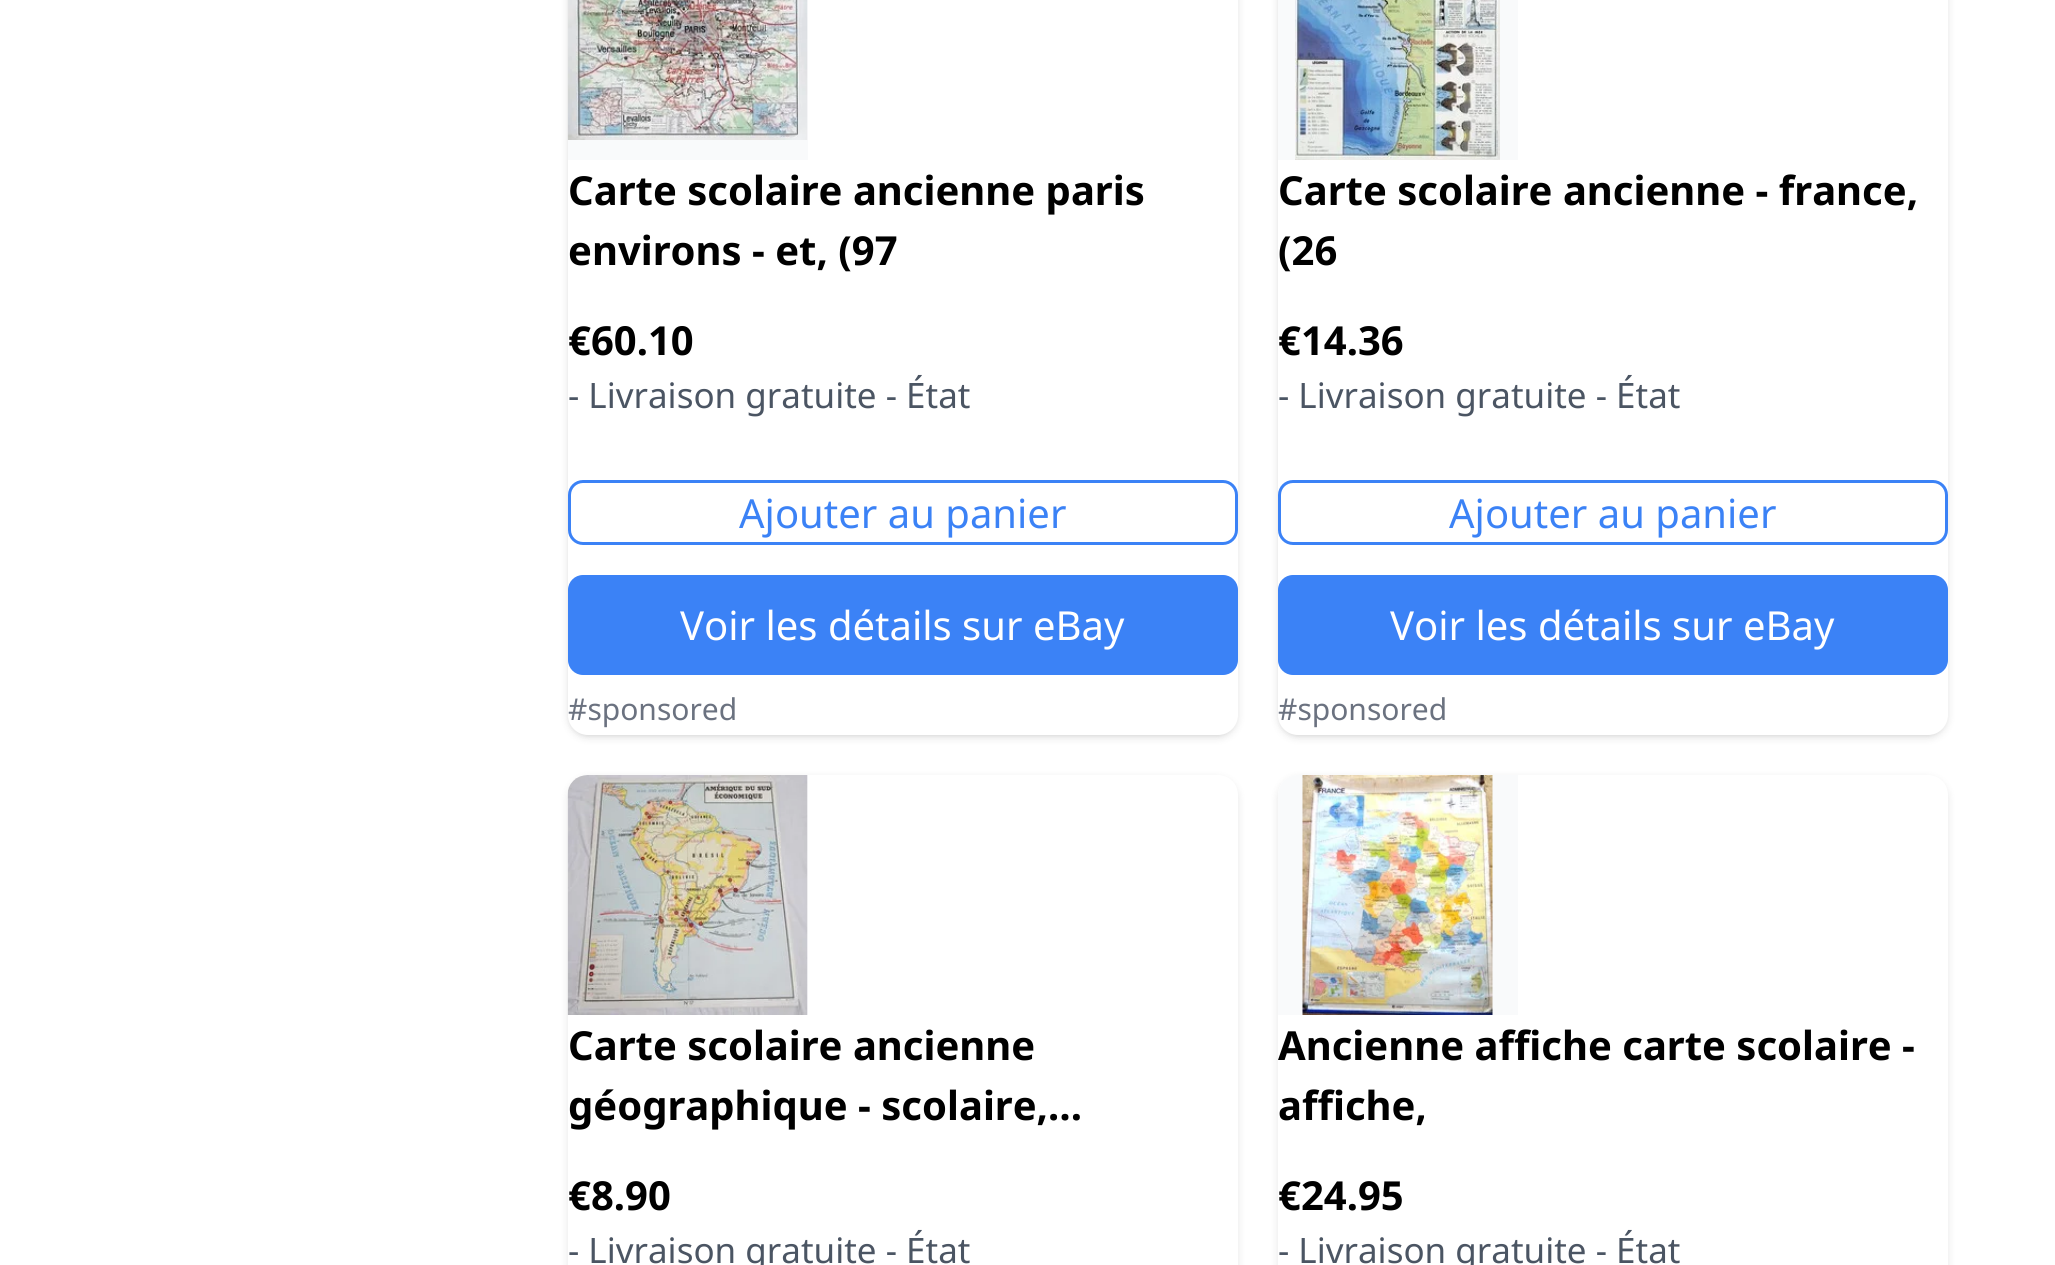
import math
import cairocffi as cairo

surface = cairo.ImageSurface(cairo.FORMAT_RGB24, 2055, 1265)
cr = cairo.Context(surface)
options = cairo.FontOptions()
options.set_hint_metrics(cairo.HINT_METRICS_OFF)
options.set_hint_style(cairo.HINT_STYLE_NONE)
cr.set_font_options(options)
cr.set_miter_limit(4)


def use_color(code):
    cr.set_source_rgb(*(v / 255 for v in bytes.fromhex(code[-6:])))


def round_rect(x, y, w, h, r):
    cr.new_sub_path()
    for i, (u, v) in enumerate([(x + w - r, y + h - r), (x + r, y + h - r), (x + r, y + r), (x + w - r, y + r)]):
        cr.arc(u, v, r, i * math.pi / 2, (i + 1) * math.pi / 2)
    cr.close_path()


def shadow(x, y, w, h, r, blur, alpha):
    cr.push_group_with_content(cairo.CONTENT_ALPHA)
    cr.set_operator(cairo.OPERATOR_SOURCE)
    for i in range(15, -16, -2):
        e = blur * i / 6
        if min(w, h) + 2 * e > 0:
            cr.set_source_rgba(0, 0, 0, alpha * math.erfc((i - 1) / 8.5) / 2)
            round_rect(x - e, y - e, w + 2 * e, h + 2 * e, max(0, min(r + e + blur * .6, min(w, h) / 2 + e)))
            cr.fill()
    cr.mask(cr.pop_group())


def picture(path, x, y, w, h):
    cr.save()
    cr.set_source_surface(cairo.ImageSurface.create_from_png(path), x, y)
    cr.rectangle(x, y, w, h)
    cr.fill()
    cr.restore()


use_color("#ffffff")
cr.paint()
use_color("#000000")
shadow(570, -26, 665, 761, 18, 2.5, 0.1)
shadow(568, -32, 670, 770, 20, 4, 0.1)
use_color("#ffffff")
round_rect(568, -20, 670, 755, 20)
cr.fill()
use_color("#f9fafb")
cr.rectangle(568, 0, 240, 160)
cr.fill()
picture("img1.png", 567, 0, 241, 140)
cr.select_font_face("Noto Sans", cairo.FONT_SLANT_NORMAL, cairo.FONT_WEIGHT_BOLD)
cr.set_font_size(40)
use_color("#000000")
cr.move_to(568, 205)
cr.show_text("Carte scolaire ancienne paris")
cr.move_to(568, 265)
cr.show_text("environs - et, (97")
cr.move_to(568, 355)
cr.show_text("€60.10")
cr.select_font_face("Noto Sans")
cr.set_font_size(35)
use_color("#4b5563")
cr.move_to(568, 408)
cr.show_text("- Livraison gratuite - État")
round_rect(569.5, 481.5, 667, 62, 13.5)
use_color("#3b82f6")
cr.set_line_width(3)
cr.stroke()
cr.set_font_size(40)
cr.move_to(739, 528)
cr.show_text("Ajouter au panier")
round_rect(568, 575, 670, 100, 15)
cr.fill()
use_color("#ffffff")
cr.move_to(680, 640)
cr.show_text("Voir les détails sur eBay")
cr.set_font_size(30)
use_color("#6b7280")
cr.move_to(568, 720)
cr.show_text("#sponsored")
use_color("#000000")
shadow(1280, -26, 665, 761, 18, 2.5, 0.1)
shadow(1278, -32, 670, 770, 20, 4, 0.1)
use_color("#ffffff")
round_rect(1278, -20, 670, 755, 20)
cr.fill()
use_color("#f9fafb")
cr.rectangle(1278, 0, 240, 160)
cr.fill()
picture("img2.png", 1295, 0, 205, 160)
cr.select_font_face("Noto Sans", cairo.FONT_SLANT_NORMAL, cairo.FONT_WEIGHT_BOLD)
cr.set_font_size(40)
use_color("#000000")
cr.move_to(1278, 205)
cr.show_text("Carte scolaire ancienne - france,")
cr.move_to(1278, 265)
cr.show_text("(26")
cr.move_to(1278, 355)
cr.show_text("€14.36")
cr.select_font_face("Noto Sans")
cr.set_font_size(35)
use_color("#4b5563")
cr.move_to(1278, 408)
cr.show_text("- Livraison gratuite - État")
round_rect(1279.5, 481.5, 667, 62, 13.5)
use_color("#3b82f6")
cr.stroke()
cr.set_font_size(40)
cr.move_to(1449, 528)
cr.show_text("Ajouter au panier")
round_rect(1278, 575, 670, 100, 15)
cr.fill()
use_color("#ffffff")
cr.move_to(1390, 640)
cr.show_text("Voir les détails sur eBay")
cr.set_font_size(30)
use_color("#6b7280")
cr.move_to(1278, 720)
cr.show_text("#sponsored")
use_color("#000000")
shadow(568, 778, 670, 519, 20, 4, 0.1)
use_color("#ffffff")
round_rect(568, 775, 670, 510, 20)
cr.fill()
use_color("#f9fafb")
cr.new_path()
cr.move_to(588, 775)
cr.line_to(808, 775)
cr.line_to(808, 1015)
cr.line_to(568, 1015)
cr.line_to(568, 795)
cr.curve_to(568, 784, 577, 775, 588, 775)
cr.close_path()
cr.fill()
picture("img3.png", 567, 775, 241, 240)
cr.select_font_face("Noto Sans", cairo.FONT_SLANT_NORMAL, cairo.FONT_WEIGHT_BOLD)
cr.set_font_size(40)
use_color("#000000")
cr.move_to(568, 1060)
cr.show_text("Carte scolaire ancienne")
cr.move_to(568, 1120)
cr.show_text("géographique - scolaire,…")
cr.move_to(568, 1210)
cr.show_text("€8.90")
cr.select_font_face("Noto Sans")
cr.set_font_size(35)
use_color("#4b5563")
cr.move_to(568, 1263)
cr.show_text("- Livraison gratuite - État")
use_color("#000000")
shadow(1278, 778, 670, 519, 20, 4, 0.1)
use_color("#ffffff")
round_rect(1278, 775, 670, 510, 20)
cr.fill()
use_color("#f9fafb")
cr.new_path()
cr.move_to(1298, 775)
cr.line_to(1518, 775)
cr.line_to(1518, 1015)
cr.line_to(1278, 1015)
cr.line_to(1278, 795)
cr.curve_to(1278, 784, 1287, 775, 1298, 775)
cr.close_path()
cr.fill()
picture("img4.png", 1302, 775, 191, 240)
cr.select_font_face("Noto Sans", cairo.FONT_SLANT_NORMAL, cairo.FONT_WEIGHT_BOLD)
cr.set_font_size(40)
use_color("#000000")
cr.move_to(1278, 1060)
cr.show_text("Ancienne affiche carte scolaire -")
cr.move_to(1278, 1120)
cr.show_text("affiche,")
cr.move_to(1278, 1210)
cr.show_text("€24.95")
cr.select_font_face("Noto Sans")
cr.set_font_size(35)
use_color("#4b5563")
cr.move_to(1278, 1263)
cr.show_text("- Livraison gratuite - État")
surface.write_to_png("result.png")
